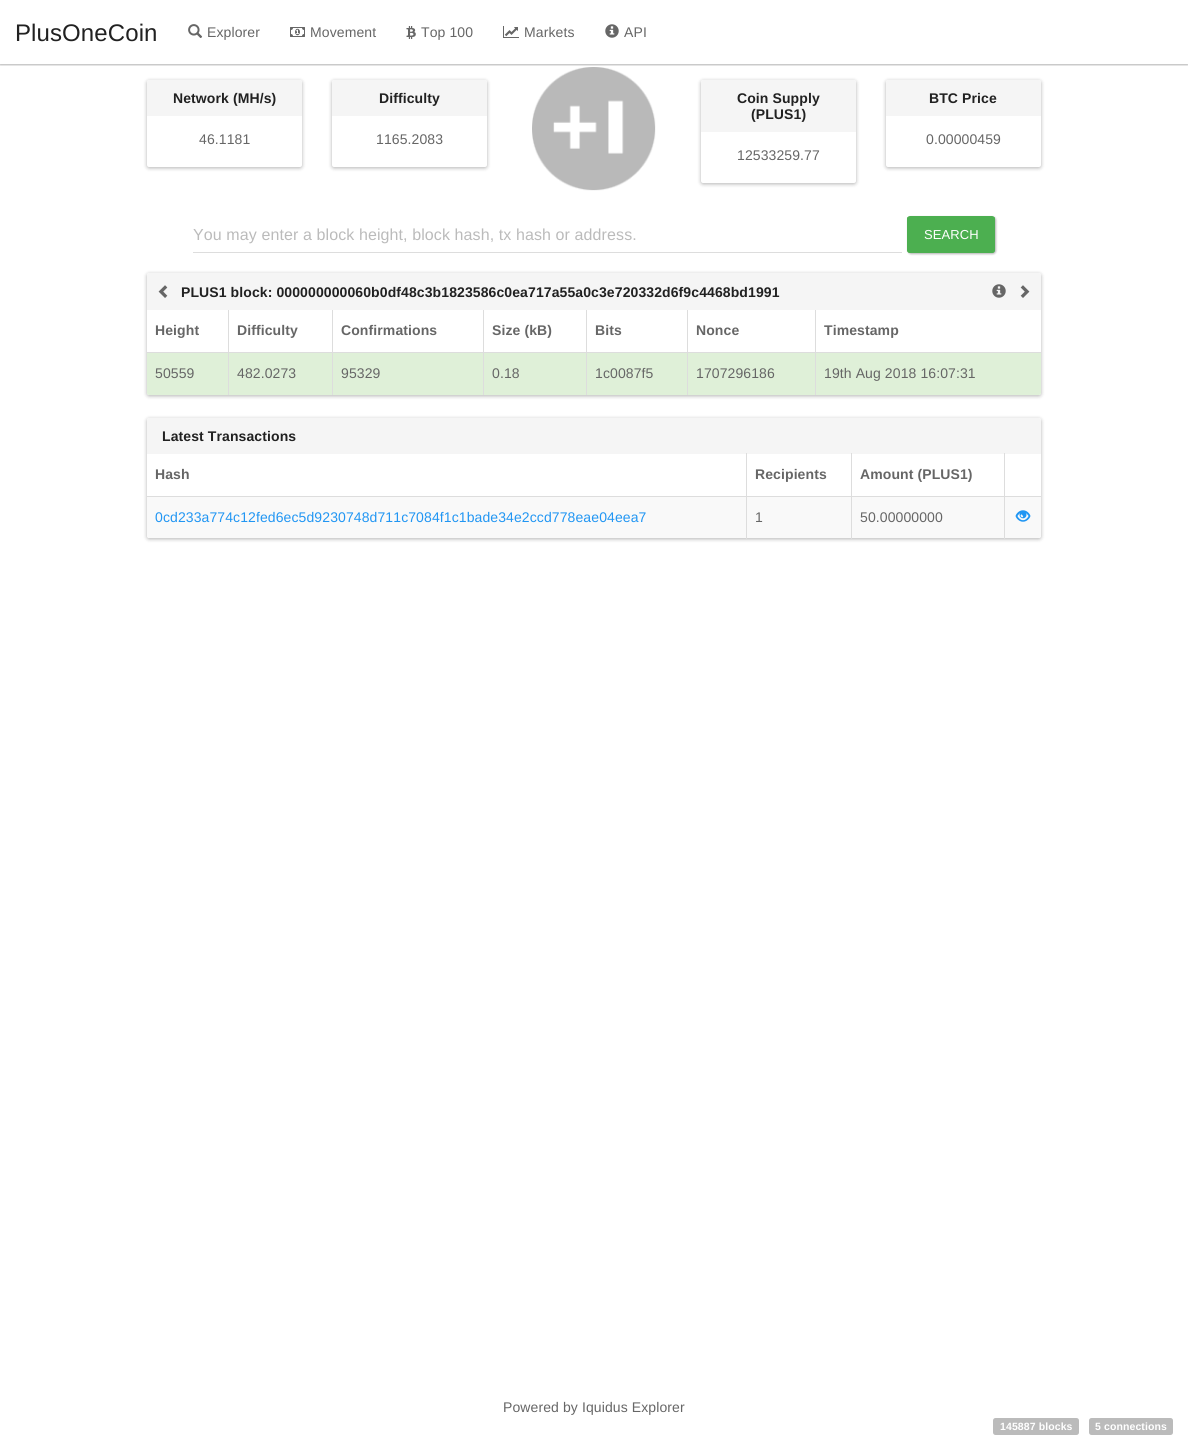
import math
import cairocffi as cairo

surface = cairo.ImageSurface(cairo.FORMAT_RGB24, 1188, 1448)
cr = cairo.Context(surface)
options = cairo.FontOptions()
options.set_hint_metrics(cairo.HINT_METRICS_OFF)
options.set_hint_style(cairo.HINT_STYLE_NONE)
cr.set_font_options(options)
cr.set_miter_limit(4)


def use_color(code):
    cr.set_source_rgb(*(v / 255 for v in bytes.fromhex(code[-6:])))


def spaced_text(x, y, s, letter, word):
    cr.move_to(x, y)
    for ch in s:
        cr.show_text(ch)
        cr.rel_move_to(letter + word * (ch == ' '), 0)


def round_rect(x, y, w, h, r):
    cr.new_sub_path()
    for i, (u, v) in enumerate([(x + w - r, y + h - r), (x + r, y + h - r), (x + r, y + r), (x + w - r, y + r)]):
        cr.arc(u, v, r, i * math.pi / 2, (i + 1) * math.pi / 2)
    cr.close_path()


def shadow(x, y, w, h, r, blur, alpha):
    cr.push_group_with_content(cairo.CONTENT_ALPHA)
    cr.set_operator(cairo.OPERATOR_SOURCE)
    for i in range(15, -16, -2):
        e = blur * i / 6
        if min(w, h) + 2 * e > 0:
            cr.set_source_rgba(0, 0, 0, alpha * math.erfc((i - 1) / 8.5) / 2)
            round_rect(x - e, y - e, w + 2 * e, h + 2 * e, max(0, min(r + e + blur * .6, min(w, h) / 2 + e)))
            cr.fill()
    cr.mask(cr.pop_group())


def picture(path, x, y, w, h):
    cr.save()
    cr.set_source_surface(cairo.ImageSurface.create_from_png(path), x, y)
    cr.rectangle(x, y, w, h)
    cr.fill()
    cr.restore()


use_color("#ffffff")
cr.paint()
picture("img6.png", 532, 67, 124, 124)
cr.save()
cr.rectangle(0, 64, 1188, 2)
cr.clip()
use_color("#000000")
shadow(0, 1, 1188, 64, 0, 1, 0.3)
cr.restore()
cr.select_font_face("Liberation Sans")
cr.set_font_size(24)
use_color("#212121")
spaced_text(15, 41, "PlusOneCoin", 0.1, 0)
picture("img1.png", 188, 24, 15, 14)
cr.set_font_size(14)
use_color("#666666")
spaced_text(207, 37, "Explorer", 0.1, 0)
picture("img2.png", 290, 27, 15, 10)
spaced_text(310, 37, "Movement", 0.1, 0)
picture("img3.png", 406, 26, 10, 13)
spaced_text(421, 37, "Top 100", 0.1, 0)
picture("img4.png", 503, 26, 16, 12)
spaced_text(524, 37, "Markets", 0.1, 0)
picture("img5.png", 605, 24, 14, 14)
spaced_text(624, 37, "API", 0.1, 0)
use_color("#000000")
shadow(147, 81, 155, 87, 2, 2, 0.3)
use_color("#ffffff")
round_rect(147, 80, 155, 87, 2)
cr.fill()
use_color("#f5f5f5")
cr.new_path()
cr.move_to(149, 80)
cr.line_to(300, 80)
cr.curve_to(301, 80, 302, 81, 302, 82)
cr.line_to(302, 116)
cr.line_to(147, 116)
cr.line_to(147, 82)
cr.curve_to(147, 81, 148, 80, 149, 80)
cr.close_path()
cr.fill()
cr.select_font_face("Liberation Sans", cairo.FONT_SLANT_NORMAL, cairo.FONT_WEIGHT_BOLD)
use_color("#212121")
spaced_text(173, 103, "Network (MH/s)", 0.1, 0)
cr.select_font_face("Liberation Sans")
use_color("#666666")
spaced_text(199, 144, "46.1181", 0.1, 0)
use_color("#000000")
shadow(332, 81, 155, 87, 2, 2, 0.3)
use_color("#ffffff")
round_rect(332, 80, 155, 87, 2)
cr.fill()
use_color("#f5f5f5")
cr.new_path()
cr.move_to(334, 80)
cr.line_to(485, 80)
cr.curve_to(486, 80, 487, 81, 487, 82)
cr.line_to(487, 116)
cr.line_to(332, 116)
cr.line_to(332, 82)
cr.curve_to(332, 81, 333, 80, 334, 80)
cr.close_path()
cr.fill()
cr.select_font_face("Liberation Sans", cairo.FONT_SLANT_NORMAL, cairo.FONT_WEIGHT_BOLD)
use_color("#212121")
spaced_text(379, 103, "Difficulty", 0.1, 0)
cr.select_font_face("Liberation Sans")
use_color("#666666")
spaced_text(376, 144, "1165.2083", 0.1, 0)
use_color("#000000")
shadow(701, 81, 155, 103, 2, 2, 0.3)
use_color("#ffffff")
round_rect(701, 80, 155, 103, 2)
cr.fill()
use_color("#f5f5f5")
cr.new_path()
cr.move_to(703, 80)
cr.line_to(854, 80)
cr.curve_to(855, 80, 856, 81, 856, 82)
cr.line_to(856, 132)
cr.line_to(701, 132)
cr.line_to(701, 82)
cr.curve_to(701, 81, 702, 80, 703, 80)
cr.close_path()
cr.fill()
cr.select_font_face("Liberation Sans", cairo.FONT_SLANT_NORMAL, cairo.FONT_WEIGHT_BOLD)
use_color("#212121")
spaced_text(737, 103, "Coin Supply", 0.1, 0)
spaced_text(751, 119, "(PLUS1)", 0.1, 0)
cr.select_font_face("Liberation Sans")
use_color("#666666")
spaced_text(737, 160, "12533259.77", 0.1, 0)
use_color("#000000")
shadow(886, 81, 155, 87, 2, 2, 0.3)
use_color("#ffffff")
round_rect(886, 80, 155, 87, 2)
cr.fill()
use_color("#f5f5f5")
cr.new_path()
cr.move_to(888, 80)
cr.line_to(1039, 80)
cr.curve_to(1040, 80, 1041, 81, 1041, 82)
cr.line_to(1041, 116)
cr.line_to(886, 116)
cr.line_to(886, 82)
cr.curve_to(886, 81, 887, 80, 888, 80)
cr.close_path()
cr.fill()
cr.select_font_face("Liberation Sans", cairo.FONT_SLANT_NORMAL, cairo.FONT_WEIGHT_BOLD)
use_color("#212121")
spaced_text(929, 103, "BTC Price", 0.1, 0)
cr.select_font_face("Liberation Sans")
use_color("#666666")
spaced_text(926, 144, "0.00000459", 0.1, 0)
use_color("#dddddd")
cr.rectangle(193, 252, 709, 1)
cr.fill()
cr.set_font_size(16)
use_color("#bbbbbb")
spaced_text(193, 240, "You may enter a block height, block hash, tx hash or address.", 0.1, 0)
use_color("#000000")
shadow(908, 217, 88, 37, 3, 1, 0.3)
use_color("#4caf50")
round_rect(907, 216, 88, 37, 3)
cr.fill()
cr.save()
round_rect(907, 216, 88, 37, 3)
cr.clip()
gradient = cairo.RadialGradient(952, 235, 0, 952, 235, 89)
gradient.add_color_stop_rgba(0.8, 0.298, 0.686, 0.314, 1)
gradient.add_color_stop_rgba(0.81, 0.263, 0.604, 0.275, 1)
cr.set_source(gradient)
cr.new_path()
cr.move_to(907, 217)
cr.line_to(995, 217)
cr.line_to(995, 250)
cr.curve_to(995, 251.5, 993.5, 253, 992, 253)
cr.line_to(910, 253)
cr.curve_to(908.5, 253, 907, 251.5, 907, 250)
cr.close_path()
cr.fill()
cr.restore()
cr.set_font_size(13)
use_color("#ffffff")
spaced_text(924, 239, "SEARCH", 0.1, 0)
use_color("#000000")
shadow(147, 274, 894, 122, 2, 2, 0.3)
use_color("#ffffff")
round_rect(147, 273, 894, 122, 2)
cr.fill()
use_color("#f5f5f5")
cr.new_path()
cr.move_to(149, 273)
cr.line_to(1039, 273)
cr.curve_to(1040, 273, 1041, 274, 1041, 275)
cr.line_to(1041, 310)
cr.line_to(147, 310)
cr.line_to(147, 275)
cr.curve_to(147, 274, 148, 273, 149, 273)
cr.close_path()
cr.fill()
picture("img7.png", 158, 285, 10, 13)
cr.select_font_face("Liberation Sans", cairo.FONT_SLANT_NORMAL, cairo.FONT_WEIGHT_BOLD)
cr.set_font_size(14)
use_color("#212121")
spaced_text(181, 297, "PLUS1 block: 000000000060b0df48c3b1823586c0ea717a55a0c3e720332d6f9c4468bd1991", 0.1, 0)
picture("img8.png", 992, 284, 14, 14)
picture("img9.png", 1020, 285, 10, 13)
use_color("#666666")
spaced_text(155, 335, "Height", 0.1, 0)
spaced_text(237, 335, "Difficulty", 0.1, 0)
spaced_text(341, 335, "Confirmations", 0.1, 0)
spaced_text(492, 335, "Size (kB)", 0.1, 0)
spaced_text(595, 335, "Bits", 0.1, 0)
spaced_text(696, 335, "Nonce", 0.1, 0)
spaced_text(824, 335, "Timestamp", 0.1, 0)
use_color("#dff0d8")
cr.new_path()
cr.move_to(147, 352)
cr.line_to(228, 352)
cr.line_to(228, 395)
cr.line_to(149, 395)
cr.curve_to(148, 395, 147, 394, 147, 393)
cr.close_path()
cr.fill()
cr.new_path()
cr.move_to(816, 352)
cr.line_to(1041, 352)
cr.line_to(1041, 393)
cr.curve_to(1041, 394, 1040, 395, 1039, 395)
cr.line_to(816, 395)
cr.close_path()
cr.fill()
use_color("#dddddd")
cr.rectangle(147, 352, 894, 1)
cr.fill()
cr.rectangle(228, 310, 1, 85)
cr.fill()
cr.select_font_face("Liberation Sans")
use_color("#666666")
spaced_text(155, 378, "50559", 0.1, 0)
use_color("#dff0d8")
cr.rectangle(229, 353, 103, 42)
cr.fill()
use_color("#dddddd")
cr.rectangle(332, 310, 1, 85)
cr.fill()
use_color("#666666")
spaced_text(237, 378, "482.0273", 0.1, 0)
use_color("#dff0d8")
cr.rectangle(333, 353, 150, 42)
cr.fill()
use_color("#dddddd")
cr.rectangle(483, 310, 1, 85)
cr.fill()
use_color("#666666")
spaced_text(341, 378, "95329", 0.1, 0)
use_color("#dff0d8")
cr.rectangle(484, 353, 102, 42)
cr.fill()
use_color("#dddddd")
cr.rectangle(586, 310, 1, 85)
cr.fill()
use_color("#666666")
spaced_text(492, 378, "0.18", 0.1, 0)
use_color("#dff0d8")
cr.rectangle(587, 353, 100, 42)
cr.fill()
use_color("#dddddd")
cr.rectangle(687, 310, 1, 85)
cr.fill()
use_color("#666666")
spaced_text(595, 378, "1c0087f5", 0.1, 0)
use_color("#dff0d8")
cr.rectangle(688, 353, 127, 42)
cr.fill()
use_color("#dddddd")
cr.rectangle(815, 310, 1, 85)
cr.fill()
use_color("#666666")
spaced_text(696, 378, "1707296186", 0.1, 0)
spaced_text(824, 378, "19th Aug 2018 16:07:31", 0.1, 0)
use_color("#000000")
shadow(147, 419, 894, 120, 2, 2, 0.3)
use_color("#ffffff")
round_rect(147, 418, 894, 120, 2)
cr.fill()
use_color("#f5f5f5")
cr.new_path()
cr.move_to(149, 418)
cr.line_to(1039, 418)
cr.curve_to(1040, 418, 1041, 419, 1041, 420)
cr.line_to(1041, 454)
cr.line_to(147, 454)
cr.line_to(147, 420)
cr.curve_to(147, 419, 148, 418, 149, 418)
cr.close_path()
cr.fill()
cr.select_font_face("Liberation Sans", cairo.FONT_SLANT_NORMAL, cairo.FONT_WEIGHT_BOLD)
use_color("#212121")
spaced_text(162, 441, "Latest Transactions", 0.1, 0)
use_color("#666666")
spaced_text(155, 479, "Hash", 0.1, 0)
spaced_text(755, 479, "Recipients", 0.1, 0)
spaced_text(860, 479, "Amount (PLUS1)", 0.1, 0)
use_color("#f9f9f9")
cr.new_path()
cr.move_to(147, 496)
cr.line_to(1041, 496)
cr.line_to(1041, 536)
cr.curve_to(1041, 537, 1040, 538, 1039, 538)
cr.line_to(149, 538)
cr.curve_to(148, 538, 147, 537, 147, 536)
cr.close_path()
cr.fill()
use_color("#dddddd")
cr.rectangle(147, 496, 894, 1)
cr.fill()
picture("img10.png", 1015, 510, 16, 12)
cr.rectangle(746, 453, 1, 86)
cr.fill()
cr.select_font_face("Liberation Sans")
use_color("#2196f3")
spaced_text(155, 522, "0cd233a774c12fed6ec5d9230748d711c7084f1c1bade34e2ccd778eae04eea7", 0.1, 0)
use_color("#dddddd")
cr.rectangle(851, 453, 1, 86)
cr.fill()
use_color("#666666")
spaced_text(755, 522, "1", 0.1, 0)
use_color("#dddddd")
cr.rectangle(1004, 453, 1, 86)
cr.fill()
use_color("#666666")
spaced_text(860, 522, "50.00000000", 0.1, 0)
spaced_text(503, 1412, "Powered by Iquidus Explorer", 0.1, 0)
use_color("#bbbbbb")
round_rect(993, 1418, 86, 17, 2.5)
cr.fill()
cr.select_font_face("Liberation Sans", cairo.FONT_SLANT_NORMAL, cairo.FONT_WEIGHT_BOLD)
cr.set_font_size(10.5)
use_color("#ffffff")
spaced_text(1000, 1430, "145887 blocks", 0.1, 0)
use_color("#bbbbbb")
round_rect(1089, 1418, 84, 17, 2.5)
cr.fill()
use_color("#ffffff")
spaced_text(1095, 1430, "5 connections", 0.1, 0)
surface.write_to_png("result.png")
